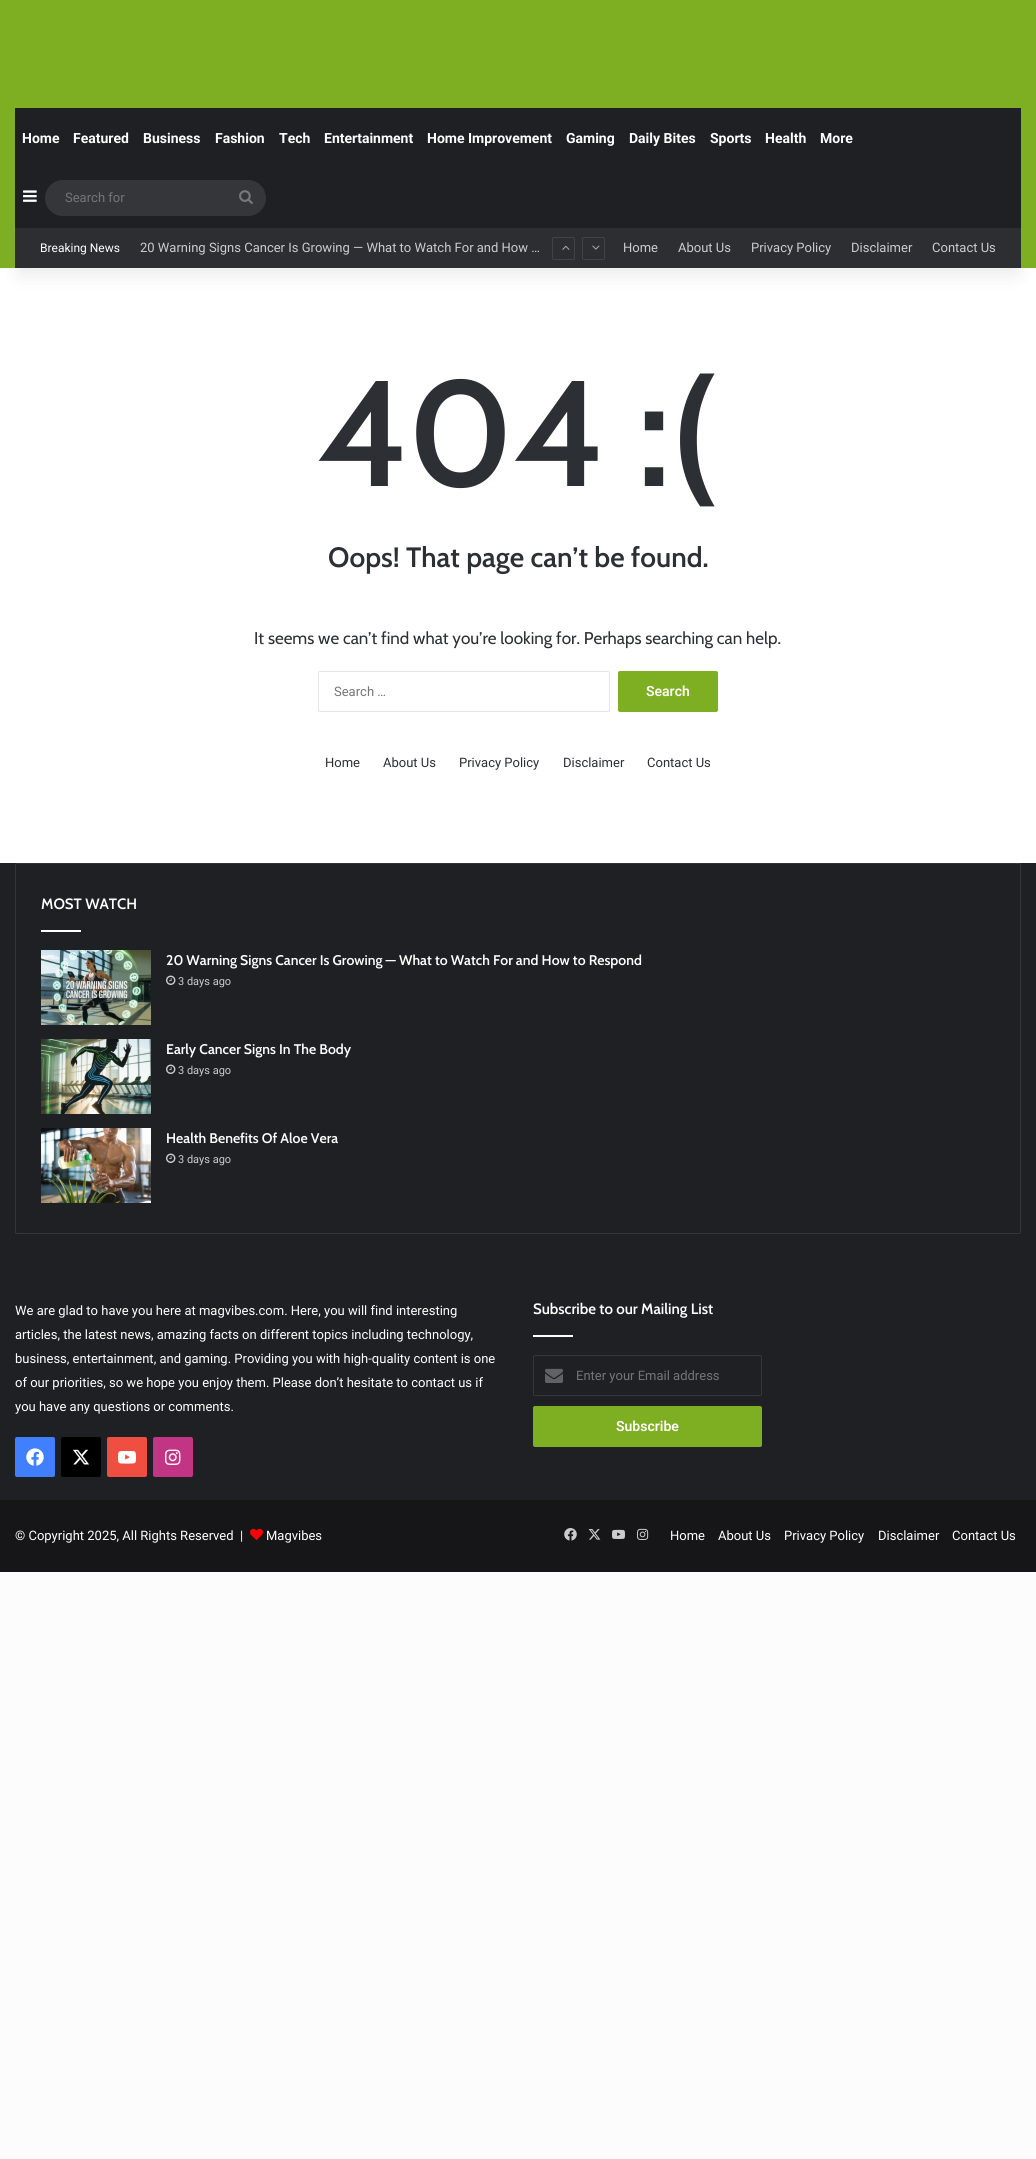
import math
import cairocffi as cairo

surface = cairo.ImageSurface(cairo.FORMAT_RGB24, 1036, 2159)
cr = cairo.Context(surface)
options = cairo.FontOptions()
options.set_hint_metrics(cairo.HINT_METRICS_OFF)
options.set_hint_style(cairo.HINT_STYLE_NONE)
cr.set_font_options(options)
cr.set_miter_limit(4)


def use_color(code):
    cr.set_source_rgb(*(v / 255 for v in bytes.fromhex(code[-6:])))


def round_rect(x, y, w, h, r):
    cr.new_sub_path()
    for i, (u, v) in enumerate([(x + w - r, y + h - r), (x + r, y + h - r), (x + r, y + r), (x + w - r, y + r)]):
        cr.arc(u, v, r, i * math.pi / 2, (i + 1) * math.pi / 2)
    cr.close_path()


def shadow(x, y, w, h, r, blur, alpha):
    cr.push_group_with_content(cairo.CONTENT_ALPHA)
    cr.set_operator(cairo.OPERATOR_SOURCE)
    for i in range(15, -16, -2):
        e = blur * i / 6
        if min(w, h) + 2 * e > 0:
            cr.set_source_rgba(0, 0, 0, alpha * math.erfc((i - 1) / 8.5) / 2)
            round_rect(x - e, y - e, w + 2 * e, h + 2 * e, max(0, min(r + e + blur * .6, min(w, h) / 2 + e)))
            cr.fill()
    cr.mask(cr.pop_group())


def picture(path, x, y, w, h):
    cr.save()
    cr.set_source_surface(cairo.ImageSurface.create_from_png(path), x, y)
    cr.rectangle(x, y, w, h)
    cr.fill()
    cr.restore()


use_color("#fcfcfc")
cr.paint()
use_color("#ffffff")
cr.rectangle(0, 268, 1036, 595)
cr.fill()
use_color("#000000")
shadow(20, 45, 996, 228, 0, 10, 0.1)
use_color("#7eae22")
cr.rectangle(0, 0, 1036, 268)
cr.fill()
use_color("#1f2024")
cr.rectangle(15, 108, 1006, 120)
cr.fill()
cr.select_font_face("Roboto", cairo.FONT_SLANT_NORMAL, cairo.FONT_WEIGHT_BOLD)
cr.set_font_size(14)
use_color("#ffffff")
cr.move_to(22, 143)
cr.show_text("Home")
cr.move_to(73, 143)
cr.show_text("Featured")
cr.move_to(143, 143)
cr.show_text("Business")
cr.move_to(215, 143)
cr.show_text("Fashion")
cr.move_to(279, 143)
cr.show_text("Tech")
cr.move_to(324, 143)
cr.show_text("Entertainment")
cr.move_to(427, 143)
cr.show_text("Home Improvement")
cr.move_to(566, 143)
cr.show_text("Gaming")
cr.move_to(629, 143)
cr.show_text("Daily Bites")
cr.move_to(710, 143)
cr.show_text("Sports")
cr.move_to(765, 143)
cr.show_text("Health")
cr.move_to(820, 143)
cr.show_text("More")
picture("img1.png", 23, 190, 14, 12)
use_color("#35363a")
round_rect(45, 180, 221, 36, 18)
cr.fill()
cr.select_font_face("Roboto")
cr.set_font_size(13)
use_color("#757575")
cr.move_to(65, 202)
cr.show_text("Search for")
picture("img2.png", 239, 190, 14, 14)
use_color("#2c2e32")
cr.rectangle(15, 228, 1006, 40)
cr.fill()
cr.set_font_size(12)
use_color("#ffffff")
cr.move_to(40, 252)
cr.show_text("Breaking News")
cr.set_font_size(13)
use_color("#cccccc")
cr.move_to(140, 252)
cr.show_text("20 Warning Signs Cancer Is Growing — What to Watch For and How …")
round_rect(552.5, 237.5, 22, 22, 1.5)
use_color("#414347")
cr.set_line_width(1)
cr.stroke()
picture("img3.png", 562, 245, 8, 5)
round_rect(582.5, 237.5, 22, 22, 1.5)
cr.stroke()
picture("img4.png", 592, 245, 8, 5)
use_color("#cccccc")
cr.move_to(623, 252)
cr.show_text("Home")
cr.move_to(678, 252)
cr.show_text("About Us")
cr.move_to(751, 252)
cr.show_text("Privacy Policy")
cr.move_to(851, 252)
cr.show_text("Disclaimer")
cr.move_to(932, 252)
cr.show_text("Contact Us")
cr.select_font_face("Cabin SemiBold")
cr.set_font_size(150)
use_color("#2c2f34")
cr.move_to(317, 486)
cr.show_text("404 :(")
cr.set_font_size(28)
cr.move_to(328, 567)
cr.show_text("Oops! That page can’t be found.")
cr.select_font_face("Cabin")
cr.set_font_size(17)
cr.move_to(254, 644)
cr.show_text("It seems we can’t find what you’re looking for. Perhaps searching can help.")
round_rect(318.5, 671.5, 291, 40, 1.5)
use_color("#e6e6e6")
cr.stroke()
cr.select_font_face("Roboto")
cr.set_font_size(13)
use_color("#757575")
cr.move_to(334, 696)
cr.show_text("Search …")
use_color("#7eae22")
round_rect(618, 671, 100, 41, 2)
cr.fill()
cr.select_font_face("Roboto SemiBold")
cr.set_font_size(14)
use_color("#ffffff")
cr.move_to(646, 696)
cr.show_text("Search")
cr.select_font_face("Roboto")
cr.set_font_size(13)
use_color("#2c2f34")
cr.move_to(325, 767)
cr.show_text("Home")
cr.move_to(383, 767)
cr.show_text("About Us")
cr.move_to(459, 767)
cr.show_text("Privacy Policy")
cr.move_to(563, 767)
cr.show_text("Disclaimer")
cr.move_to(647, 767)
cr.show_text("Contact Us")
use_color("#1f2024")
cr.rectangle(0, 863, 1036, 637)
cr.fill()
round_rect(15.5, 863.5, 1005, 370, 1.5)
use_color("#35363a")
cr.stroke()
cr.select_font_face("Cabin SemiBold")
cr.set_font_size(15)
use_color("#ffffff")
cr.move_to(41, 909)
cr.show_text("MOST WATCH")
cr.rectangle(41, 930, 40, 2)
cr.fill()
picture("img5.png", 41, 950, 110, 75)
cr.set_font_size(14)
cr.move_to(166, 965)
cr.show_text("20 Warning Signs Cancer Is Growing — What to Watch For and How to Respond")
picture("img6.png", 166, 975, 10, 10)
cr.select_font_face("Roboto")
cr.set_font_size(11)
use_color("#cccccc")
cr.move_to(178, 985)
cr.show_text("3 days ago")
picture("img7.png", 41, 1039, 110, 75)
cr.select_font_face("Cabin SemiBold")
cr.set_font_size(14)
use_color("#ffffff")
cr.move_to(166, 1054)
cr.show_text("Early Cancer Signs In The Body")
picture("img6.png", 166, 1064, 10, 10)
cr.select_font_face("Roboto")
cr.set_font_size(11)
use_color("#cccccc")
cr.move_to(178, 1074)
cr.show_text("3 days ago")
picture("img8.png", 41, 1128, 110, 75)
cr.select_font_face("Cabin SemiBold")
cr.set_font_size(14)
use_color("#ffffff")
cr.move_to(166, 1143)
cr.show_text("Health Benefits Of Aloe Vera")
picture("img6.png", 166, 1153, 10, 10)
cr.select_font_face("Roboto")
cr.set_font_size(11)
use_color("#cccccc")
cr.move_to(178, 1163)
cr.show_text("3 days ago")
cr.set_font_size(13)
use_color("#ffffff")
cr.move_to(15, 1315)
cr.show_text("We are glad to have you here at magvibes.com. Here, you will find interesting")
cr.move_to(15, 1339)
cr.show_text("articles, the latest news, amazing facts on different topics including technology,")
cr.move_to(15, 1363)
cr.show_text("business, entertainment, and gaming. Providing you with high-quality content is one")
cr.move_to(15, 1387)
cr.show_text("of our priorities, so we hope you enjoy them. Please don’t hesitate to contact us if")
cr.move_to(15, 1411)
cr.show_text("you have any questions or comments.")
use_color("#4080ff")
round_rect(15, 1437, 40, 40, 2)
cr.fill()
picture("img9.png", 26, 1448, 18, 18)
use_color("#000000")
round_rect(61, 1437, 40, 40, 2)
cr.fill()
picture("img10.png", 73, 1449, 16, 16)
use_color("#ef4e41")
round_rect(107, 1437, 40, 40, 2)
cr.fill()
picture("img11.png", 118, 1450, 18, 14)
use_color("#c13584")
round_rect(153, 1437, 40, 40, 2)
cr.fill()
picture("img12.png", 165, 1449, 16, 16)
cr.select_font_face("Cabin SemiBold")
cr.set_font_size(15)
use_color("#ffffff")
cr.move_to(533, 1314)
cr.show_text("Subscribe to our Mailing List")
cr.rectangle(533, 1335, 40, 2)
cr.fill()
round_rect(533.5, 1355.5, 228, 40, 1.5)
use_color("#35363a")
cr.stroke()
picture("img13.png", 545, 1368, 18, 15)
cr.select_font_face("Roboto")
cr.set_font_size(13)
use_color("#757575")
cr.move_to(576, 1380)
cr.show_text("Enter your Email address")
use_color("#7eae22")
round_rect(533, 1406, 229, 41, 2)
cr.fill()
cr.select_font_face("Roboto SemiBold")
cr.set_font_size(14)
use_color("#ffffff")
cr.move_to(616, 1431)
cr.show_text("Subscribe")
use_color("#161619")
cr.rectangle(0, 1500, 1036, 72)
cr.fill()
cr.select_font_face("Roboto")
cr.set_font_size(13)
use_color("#ffffff")
cr.move_to(15, 1540)
cr.show_text("© Copyright 2025, All Rights Reserved  |")
picture("img14.png", 250, 1528, 13, 12)
cr.move_to(266, 1540)
cr.show_text("Magvibes")
picture("img15.png", 564, 1528, 13, 13)
picture("img16.png", 588, 1529, 13, 11)
picture("img17.png", 612, 1529, 13, 10)
picture("img18.png", 637, 1528, 12, 12)
cr.move_to(670, 1540)
cr.show_text("Home")
cr.move_to(718, 1540)
cr.show_text("About Us")
cr.move_to(784, 1540)
cr.show_text("Privacy Policy")
cr.move_to(878, 1540)
cr.show_text("Disclaimer")
cr.move_to(952, 1540)
cr.show_text("Contact Us")
surface.write_to_png("result.png")
